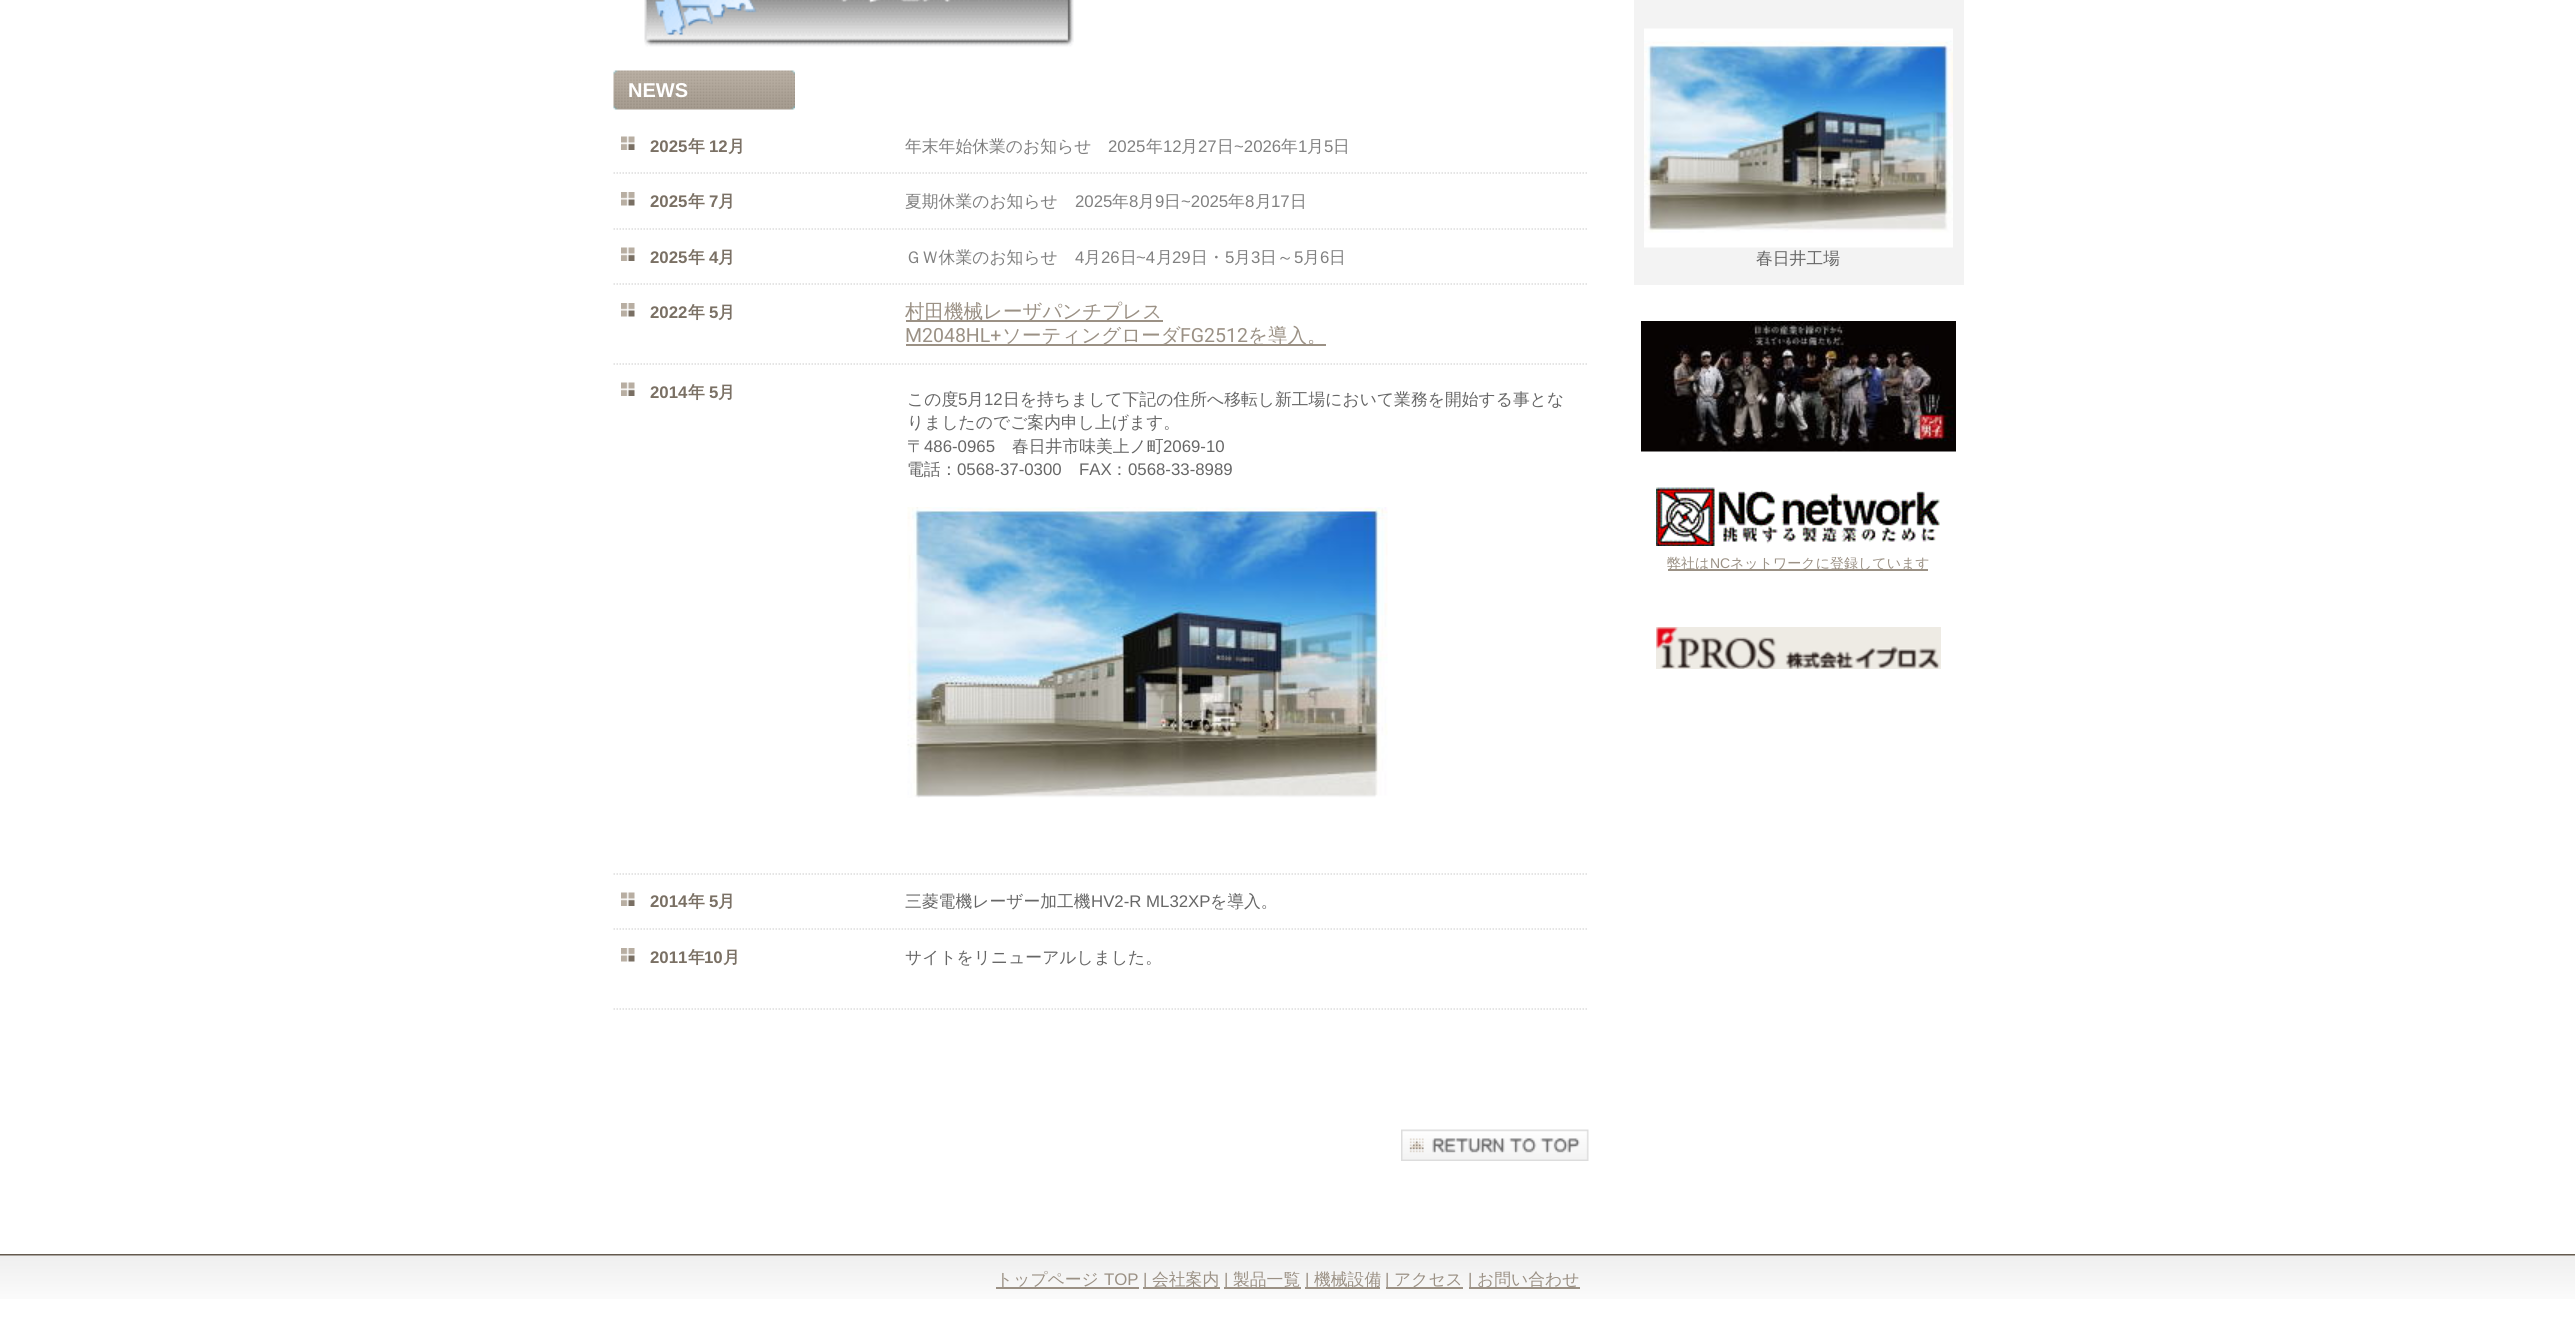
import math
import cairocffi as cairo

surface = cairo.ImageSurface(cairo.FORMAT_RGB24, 2575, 1331)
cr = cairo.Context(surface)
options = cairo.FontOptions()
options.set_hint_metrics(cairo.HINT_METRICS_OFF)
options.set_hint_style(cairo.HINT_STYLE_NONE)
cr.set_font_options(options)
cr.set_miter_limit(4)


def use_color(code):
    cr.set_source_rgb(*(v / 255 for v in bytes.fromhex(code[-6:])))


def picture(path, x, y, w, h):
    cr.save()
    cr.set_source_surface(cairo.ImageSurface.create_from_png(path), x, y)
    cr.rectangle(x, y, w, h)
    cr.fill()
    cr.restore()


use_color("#ffffff")
cr.paint()
picture("img1.png", 0, 1254, 2575, 45)
picture("img2.png", 644, 0, 430, 47)
picture("img3.png", 613, 70, 182, 40)
cr.select_font_face("Liberation Sans", cairo.FONT_SLANT_NORMAL, cairo.FONT_WEIGHT_BOLD)
cr.set_font_size(20)
use_color("#ffffff")
cr.move_to(628, 97)
cr.show_text("NEWS")
picture("img4.png", 621, 136, 14, 14)
cr.set_font_size(16.8)
use_color("#7a7064")
cr.move_to(650, 152)
cr.show_text("2025")
cr.select_font_face("WenQuanYi Zen Hei", cairo.FONT_SLANT_NORMAL, cairo.FONT_WEIGHT_BOLD)
cr.move_to(688, 152)
cr.show_text("年")
cr.select_font_face("Liberation Sans", cairo.FONT_SLANT_NORMAL, cairo.FONT_WEIGHT_BOLD)
cr.move_to(709, 152)
cr.show_text("12")
cr.select_font_face("WenQuanYi Zen Hei", cairo.FONT_SLANT_NORMAL, cairo.FONT_WEIGHT_BOLD)
cr.move_to(728, 152)
cr.show_text("月")
cr.new_path()
cr.move_to(613.5, 173)
cr.line_to(1588.5, 173)
use_color("#dddddd")
cr.set_line_width(1.5)
cr.set_dash([1.5, 1.5])
cr.stroke()
cr.select_font_face("WenQuanYi Zen Hei Medium")
use_color("#808080")
cr.move_to(905, 152)
cr.show_text("年末年始休業のお知らせ")
cr.select_font_face("Liberation Sans")
cr.move_to(1108, 152)
cr.show_text("2025")
cr.select_font_face("WenQuanYi Zen Hei Medium")
cr.move_to(1146, 152)
cr.show_text("年")
cr.select_font_face("Liberation Sans")
cr.move_to(1163, 152)
cr.show_text("12")
cr.select_font_face("WenQuanYi Zen Hei Medium")
cr.move_to(1181, 152)
cr.show_text("月")
cr.select_font_face("Liberation Sans")
cr.move_to(1198, 152)
cr.show_text("27")
cr.select_font_face("WenQuanYi Zen Hei Medium")
cr.move_to(1217, 152)
cr.show_text("日")
cr.select_font_face("Liberation Sans")
cr.move_to(1234, 152)
cr.show_text("~2026")
cr.select_font_face("WenQuanYi Zen Hei Medium")
cr.move_to(1281, 152)
cr.show_text("年")
cr.select_font_face("Liberation Sans")
cr.move_to(1298, 152)
cr.show_text("1")
cr.select_font_face("WenQuanYi Zen Hei Medium")
cr.move_to(1307, 152)
cr.show_text("月")
cr.select_font_face("Liberation Sans")
cr.move_to(1324, 152)
cr.show_text("5")
cr.select_font_face("WenQuanYi Zen Hei Medium")
cr.move_to(1333, 152)
cr.show_text("日")
picture("img5.png", 621, 192, 14, 14)
cr.select_font_face("Liberation Sans", cairo.FONT_SLANT_NORMAL, cairo.FONT_WEIGHT_BOLD)
use_color("#7a7064")
cr.move_to(650, 207)
cr.show_text("2025")
cr.select_font_face("WenQuanYi Zen Hei", cairo.FONT_SLANT_NORMAL, cairo.FONT_WEIGHT_BOLD)
cr.move_to(688, 207)
cr.show_text("年")
cr.select_font_face("Liberation Sans", cairo.FONT_SLANT_NORMAL, cairo.FONT_WEIGHT_BOLD)
cr.move_to(709, 207)
cr.show_text("7")
cr.select_font_face("WenQuanYi Zen Hei", cairo.FONT_SLANT_NORMAL, cairo.FONT_WEIGHT_BOLD)
cr.move_to(718, 207)
cr.show_text("月")
cr.new_path()
cr.move_to(613.5, 229)
cr.line_to(1588.5, 229)
use_color("#dddddd")
cr.stroke()
cr.select_font_face("WenQuanYi Zen Hei Medium")
use_color("#808080")
cr.move_to(905, 207)
cr.show_text("夏期休業のお知らせ")
cr.select_font_face("Liberation Sans")
cr.move_to(1075, 207)
cr.show_text("2025")
cr.select_font_face("WenQuanYi Zen Hei Medium")
cr.move_to(1112, 207)
cr.show_text("年")
cr.select_font_face("Liberation Sans")
cr.move_to(1129, 207)
cr.show_text("8")
cr.select_font_face("WenQuanYi Zen Hei Medium")
cr.move_to(1138, 207)
cr.show_text("月")
cr.select_font_face("Liberation Sans")
cr.move_to(1155, 207)
cr.show_text("9")
cr.select_font_face("WenQuanYi Zen Hei Medium")
cr.move_to(1164, 207)
cr.show_text("日")
cr.select_font_face("Liberation Sans")
cr.move_to(1181, 207)
cr.show_text("~2025")
cr.select_font_face("WenQuanYi Zen Hei Medium")
cr.move_to(1228, 207)
cr.show_text("年")
cr.select_font_face("Liberation Sans")
cr.move_to(1245, 207)
cr.show_text("8")
cr.select_font_face("WenQuanYi Zen Hei Medium")
cr.move_to(1255, 207)
cr.show_text("月")
cr.select_font_face("Liberation Sans")
cr.move_to(1271, 207)
cr.show_text("17")
cr.select_font_face("WenQuanYi Zen Hei Medium")
cr.move_to(1290, 207)
cr.show_text("日")
picture("img4.png", 621, 247, 14, 14)
cr.select_font_face("Liberation Sans", cairo.FONT_SLANT_NORMAL, cairo.FONT_WEIGHT_BOLD)
use_color("#7a7064")
cr.move_to(650, 263)
cr.show_text("2025")
cr.select_font_face("WenQuanYi Zen Hei", cairo.FONT_SLANT_NORMAL, cairo.FONT_WEIGHT_BOLD)
cr.move_to(688, 263)
cr.show_text("年")
cr.select_font_face("Liberation Sans", cairo.FONT_SLANT_NORMAL, cairo.FONT_WEIGHT_BOLD)
cr.move_to(709, 263)
cr.show_text("4")
cr.select_font_face("WenQuanYi Zen Hei", cairo.FONT_SLANT_NORMAL, cairo.FONT_WEIGHT_BOLD)
cr.move_to(718, 263)
cr.show_text("月")
cr.new_path()
cr.move_to(613.5, 284)
cr.line_to(1588.5, 284)
use_color("#dddddd")
cr.stroke()
cr.select_font_face("WenQuanYi Zen Hei Medium")
use_color("#808080")
cr.move_to(905, 263)
cr.show_text("ＧＷ休業のお知らせ")
cr.select_font_face("Liberation Sans")
cr.move_to(1075, 263)
cr.show_text("4")
cr.select_font_face("WenQuanYi Zen Hei Medium")
cr.move_to(1084, 263)
cr.show_text("月")
cr.select_font_face("Liberation Sans")
cr.move_to(1101, 263)
cr.show_text("26")
cr.select_font_face("WenQuanYi Zen Hei Medium")
cr.move_to(1120, 263)
cr.show_text("日")
cr.select_font_face("Liberation Sans")
cr.move_to(1136, 263)
cr.show_text("~4")
cr.select_font_face("WenQuanYi Zen Hei Medium")
cr.move_to(1156, 263)
cr.show_text("月")
cr.select_font_face("Liberation Sans")
cr.move_to(1172, 263)
cr.show_text("29")
cr.select_font_face("WenQuanYi Zen Hei Medium")
cr.move_to(1191, 263)
cr.show_text("日・")
cr.select_font_face("Liberation Sans")
cr.move_to(1225, 263)
cr.show_text("5")
cr.select_font_face("WenQuanYi Zen Hei Medium")
cr.move_to(1234, 263)
cr.show_text("月")
cr.select_font_face("Liberation Sans")
cr.move_to(1251, 263)
cr.show_text("3")
cr.select_font_face("WenQuanYi Zen Hei Medium")
cr.move_to(1260, 263)
cr.show_text("日～")
cr.select_font_face("Liberation Sans")
cr.move_to(1294, 263)
cr.show_text("5")
cr.select_font_face("WenQuanYi Zen Hei Medium")
cr.move_to(1303, 263)
cr.show_text("月")
cr.select_font_face("Liberation Sans")
cr.move_to(1320, 263)
cr.show_text("6")
cr.select_font_face("WenQuanYi Zen Hei Medium")
cr.move_to(1329, 263)
cr.show_text("日")
picture("img5.png", 621, 303, 14, 14)
cr.select_font_face("Liberation Sans", cairo.FONT_SLANT_NORMAL, cairo.FONT_WEIGHT_BOLD)
use_color("#7a7064")
cr.move_to(650, 318)
cr.show_text("2022")
cr.select_font_face("WenQuanYi Zen Hei", cairo.FONT_SLANT_NORMAL, cairo.FONT_WEIGHT_BOLD)
cr.move_to(688, 318)
cr.show_text("年")
cr.select_font_face("Liberation Sans", cairo.FONT_SLANT_NORMAL, cairo.FONT_WEIGHT_BOLD)
cr.move_to(709, 318)
cr.show_text("5")
cr.select_font_face("WenQuanYi Zen Hei", cairo.FONT_SLANT_NORMAL, cairo.FONT_WEIGHT_BOLD)
cr.move_to(718, 318)
cr.show_text("月")
cr.new_path()
cr.move_to(613.5, 364)
cr.line_to(1588.5, 364)
use_color("#dddddd")
cr.stroke()
use_color("#9b9185")
cr.rectangle(906, 320, 257, 2)
cr.fill()
cr.select_font_face("WenQuanYi Zen Hei Medium")
cr.set_font_size(19.5)
cr.move_to(905, 318)
cr.show_text("村田機械レーザパンチプレス")
cr.select_font_face("Roboto")
cr.move_to(905, 342)
cr.show_text("M2048HL+")
cr.rectangle(906, 344, 420, 2)
cr.fill()
cr.select_font_face("WenQuanYi Zen Hei Medium")
cr.move_to(1002, 342)
cr.show_text("ソーティングローダ")
cr.select_font_face("Roboto")
cr.move_to(1180, 342)
cr.show_text("FG2512")
cr.select_font_face("WenQuanYi Zen Hei Medium")
cr.move_to(1248, 342)
cr.show_text("を導入。")
picture("img4.png", 621, 382, 14, 14)
cr.select_font_face("Liberation Sans", cairo.FONT_SLANT_NORMAL, cairo.FONT_WEIGHT_BOLD)
cr.set_font_size(16.8)
use_color("#7a7064")
cr.move_to(650, 398)
cr.show_text("2014")
cr.select_font_face("WenQuanYi Zen Hei", cairo.FONT_SLANT_NORMAL, cairo.FONT_WEIGHT_BOLD)
cr.move_to(688, 398)
cr.show_text("年")
cr.select_font_face("Liberation Sans", cairo.FONT_SLANT_NORMAL, cairo.FONT_WEIGHT_BOLD)
cr.move_to(709, 398)
cr.show_text("5")
cr.select_font_face("WenQuanYi Zen Hei", cairo.FONT_SLANT_NORMAL, cairo.FONT_WEIGHT_BOLD)
cr.move_to(718, 398)
cr.show_text("月")
cr.new_path()
cr.move_to(613.5, 874)
cr.line_to(1588.5, 874)
use_color("#dddddd")
cr.stroke()
cr.select_font_face("WenQuanYi Zen Hei Medium")
use_color("#666666")
cr.move_to(907, 405)
cr.show_text("この度")
cr.select_font_face("Liberation Sans")
cr.move_to(958, 405)
cr.show_text("5")
cr.select_font_face("WenQuanYi Zen Hei Medium")
cr.move_to(967, 405)
cr.show_text("月")
cr.select_font_face("Liberation Sans")
cr.move_to(984, 405)
cr.show_text("12")
cr.select_font_face("WenQuanYi Zen Hei Medium")
cr.move_to(1003, 405)
cr.show_text("日を持ちまして下記の住所へ移転し新工場において業務を開始する事とな")
cr.move_to(907, 428)
cr.show_text("りましたのでご案内申し上げます。")
cr.move_to(907, 452)
cr.show_text("〒")
cr.select_font_face("Liberation Sans")
cr.move_to(924, 452)
cr.show_text("486-0965")
cr.select_font_face("WenQuanYi Zen Hei Medium")
cr.move_to(1012, 452)
cr.show_text("春日井市味美上ノ町")
cr.select_font_face("Liberation Sans")
cr.move_to(1163, 452)
cr.show_text("2069-10")
cr.select_font_face("WenQuanYi Zen Hei Medium")
cr.move_to(907, 475)
cr.show_text("電話：")
cr.select_font_face("Liberation Sans")
cr.move_to(957, 475)
cr.show_text("0568-37-0300")
cr.move_to(1079, 475)
cr.show_text("FAX")
cr.select_font_face("WenQuanYi Zen Hei Medium")
cr.move_to(1111, 475)
cr.show_text("：")
cr.select_font_face("Liberation Sans")
cr.move_to(1128, 475)
cr.show_text("0568-33-8989")
picture("img6.png", 907, 507, 481, 291)
picture("img4.png", 621, 892, 14, 14)
cr.select_font_face("Liberation Sans", cairo.FONT_SLANT_NORMAL, cairo.FONT_WEIGHT_BOLD)
use_color("#7a7064")
cr.move_to(650, 907)
cr.show_text("2014")
cr.select_font_face("WenQuanYi Zen Hei", cairo.FONT_SLANT_NORMAL, cairo.FONT_WEIGHT_BOLD)
cr.move_to(688, 907)
cr.show_text("年")
cr.select_font_face("Liberation Sans", cairo.FONT_SLANT_NORMAL, cairo.FONT_WEIGHT_BOLD)
cr.move_to(709, 907)
cr.show_text("5")
cr.select_font_face("WenQuanYi Zen Hei", cairo.FONT_SLANT_NORMAL, cairo.FONT_WEIGHT_BOLD)
cr.move_to(718, 907)
cr.show_text("月")
cr.new_path()
cr.move_to(613.5, 929)
cr.line_to(1588.5, 929)
use_color("#dddddd")
cr.stroke()
cr.select_font_face("WenQuanYi Zen Hei Medium")
use_color("#666666")
cr.move_to(905, 907)
cr.show_text("三菱電機レーザー加工機")
cr.select_font_face("Liberation Sans")
cr.move_to(1091, 907)
cr.show_text("HV2-R ML32XP")
cr.select_font_face("WenQuanYi Zen Hei Medium")
cr.move_to(1210, 907)
cr.show_text("を導入。")
picture("img5.png", 621, 948, 14, 14)
cr.select_font_face("Liberation Sans", cairo.FONT_SLANT_NORMAL, cairo.FONT_WEIGHT_BOLD)
use_color("#7a7064")
cr.move_to(650, 963)
cr.show_text("2011")
cr.select_font_face("WenQuanYi Zen Hei", cairo.FONT_SLANT_NORMAL, cairo.FONT_WEIGHT_BOLD)
cr.move_to(688, 963)
cr.show_text("年")
cr.select_font_face("Liberation Sans", cairo.FONT_SLANT_NORMAL, cairo.FONT_WEIGHT_BOLD)
cr.move_to(704, 963)
cr.show_text("10")
cr.select_font_face("WenQuanYi Zen Hei", cairo.FONT_SLANT_NORMAL, cairo.FONT_WEIGHT_BOLD)
cr.move_to(723, 963)
cr.show_text("月")
cr.new_path()
cr.move_to(613.5, 1009)
cr.line_to(1588.5, 1009)
use_color("#dddddd")
cr.stroke()
cr.select_font_face("WenQuanYi Zen Hei Medium")
use_color("#666666")
cr.move_to(905, 963)
cr.show_text("サイトをリニューアルしました。")
picture("img7.png", 1401, 1129, 188, 32)
use_color("#f3f3f3")
cr.rectangle(1634, 0, 330, 285)
cr.fill()
picture("img8.png", 1644, 28, 309, 220)
use_color("#666666")
cr.move_to(1756, 264)
cr.show_text("春日井工場")
picture("img9.png", 1641, 321, 315, 131)
picture("img10.png", 1656, 487, 284, 59)
use_color("#9b9185")
cr.rectangle(1668, 569, 260, 2)
cr.fill()
cr.set_font_size(14)
cr.move_to(1667, 568)
cr.show_text("弊社は")
cr.select_font_face("Liberation Sans")
cr.move_to(1710, 568)
cr.show_text("NC")
cr.select_font_face("WenQuanYi Zen Hei Medium")
cr.move_to(1730, 568)
cr.show_text("ネットワークに登録しています")
picture("img11.png", 1656, 627, 285, 42)
cr.rectangle(996, 1287, 143, 2)
cr.fill()
cr.set_font_size(16.8)
cr.move_to(996, 1285)
cr.show_text("トップページ")
cr.select_font_face("Liberation Sans")
cr.move_to(1104, 1285)
cr.show_text("TOP")
cr.rectangle(1143, 1287, 77, 2)
cr.fill()
cr.move_to(1143, 1285)
cr.show_text("|")
cr.select_font_face("WenQuanYi Zen Hei Medium")
cr.move_to(1152, 1285)
cr.show_text("会社案内")
cr.rectangle(1224, 1287, 77, 2)
cr.fill()
cr.select_font_face("Liberation Sans")
cr.move_to(1224, 1285)
cr.show_text("|")
cr.select_font_face("WenQuanYi Zen Hei Medium")
cr.move_to(1233, 1285)
cr.show_text("製品一覧")
cr.rectangle(1305, 1287, 75, 2)
cr.fill()
cr.select_font_face("Liberation Sans")
cr.move_to(1305, 1285)
cr.show_text("|")
cr.select_font_face("WenQuanYi Zen Hei Medium")
cr.move_to(1314, 1285)
cr.show_text("機械設備")
cr.rectangle(1386, 1287, 77, 2)
cr.fill()
cr.select_font_face("Liberation Sans")
cr.move_to(1385, 1285)
cr.show_text("|")
cr.select_font_face("WenQuanYi Zen Hei Medium")
cr.move_to(1394, 1285)
cr.show_text("アクセス")
cr.rectangle(1469, 1287, 111, 2)
cr.fill()
cr.select_font_face("Liberation Sans")
cr.move_to(1468, 1285)
cr.show_text("|")
cr.select_font_face("WenQuanYi Zen Hei Medium")
cr.move_to(1477, 1285)
cr.show_text("お問い合わせ")
surface.write_to_png("result.png")
